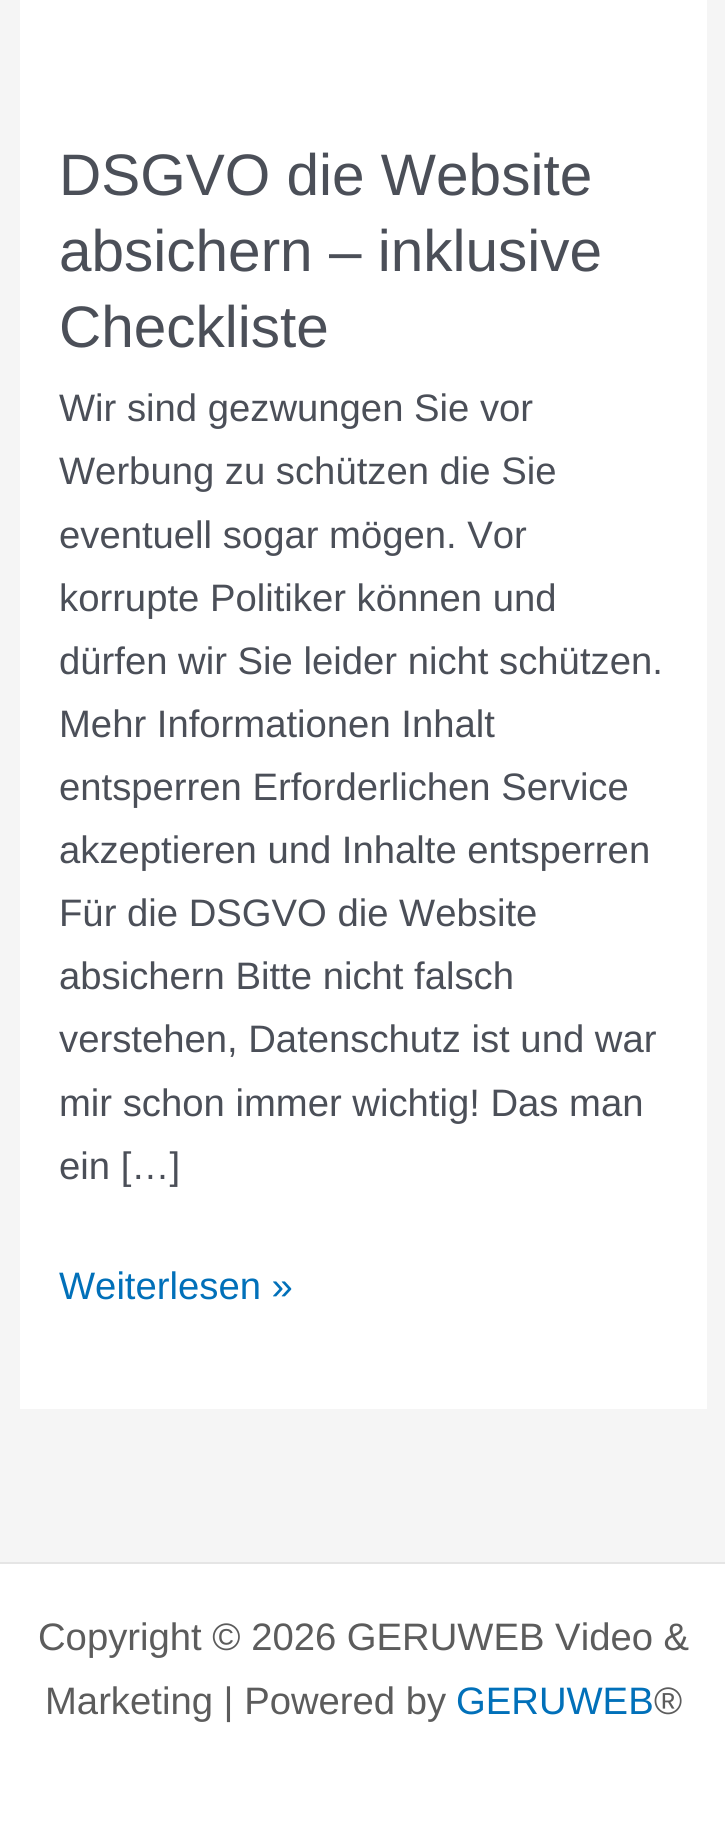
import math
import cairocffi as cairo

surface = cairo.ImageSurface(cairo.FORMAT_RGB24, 725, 1822)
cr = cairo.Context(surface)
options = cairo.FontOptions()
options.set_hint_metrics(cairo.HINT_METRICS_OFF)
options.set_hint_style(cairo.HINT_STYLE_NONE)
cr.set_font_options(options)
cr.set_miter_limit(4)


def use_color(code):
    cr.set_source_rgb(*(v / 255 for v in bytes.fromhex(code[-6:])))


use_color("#f5f5f5")
cr.paint()
use_color("#ffffff")
cr.rectangle(20, 0, 687, 1409)
cr.fill()
cr.select_font_face("Liberation Sans")
cr.set_font_size(58.5)
use_color("#4b4f58")
cr.move_to(59, 195)
cr.show_text("DSGVO die Website")
cr.move_to(59, 271)
cr.show_text("absichern – inklusive")
cr.move_to(59, 347)
cr.show_text("Checkliste")
cr.set_font_size(38.25)
cr.move_to(59, 421)
cr.show_text("Wir sind gezwungen Sie vor")
cr.move_to(59, 484)
cr.show_text("Werbung zu schützen die Sie")
cr.move_to(59, 548)
cr.show_text("eventuell sogar mögen. Vor")
cr.move_to(59, 611)
cr.show_text("korrupte Politiker können und")
cr.move_to(59, 674)
cr.show_text("dürfen wir Sie leider nicht schützen.")
cr.move_to(59, 737)
cr.show_text("Mehr Informationen Inhalt")
cr.move_to(59, 800)
cr.show_text("entsperren Erforderlichen Service")
cr.move_to(59, 863)
cr.show_text("akzeptieren und Inhalte entsperren")
cr.move_to(59, 926)
cr.show_text("Für die DSGVO die Website")
cr.move_to(59, 989)
cr.show_text("absichern Bitte nicht falsch")
cr.move_to(59, 1052)
cr.show_text("verstehen, Datenschutz ist und war")
cr.move_to(59, 1116)
cr.show_text("mir schon immer wichtig! Das man")
cr.move_to(59, 1179)
cr.show_text("ein […]")
use_color("#0170b9")
cr.move_to(59, 1299)
cr.show_text("Weiterlesen »")
use_color("#ffffff")
cr.rectangle(0, 1564, 725, 258)
cr.fill()
use_color("#e5e5e5")
cr.rectangle(0, 1562, 725, 2)
cr.fill()
use_color("#5c5c5c")
cr.move_to(38, 1650)
cr.show_text("Copyright © 2026 GERUWEB Video &")
cr.move_to(45, 1714)
cr.show_text("Marketing | Powered by")
use_color("#0170b9")
cr.move_to(456, 1714)
cr.show_text("GERUWEB")
use_color("#5c5c5c")
cr.move_to(654, 1714)
cr.show_text("®")
surface.write_to_png("result.png")
